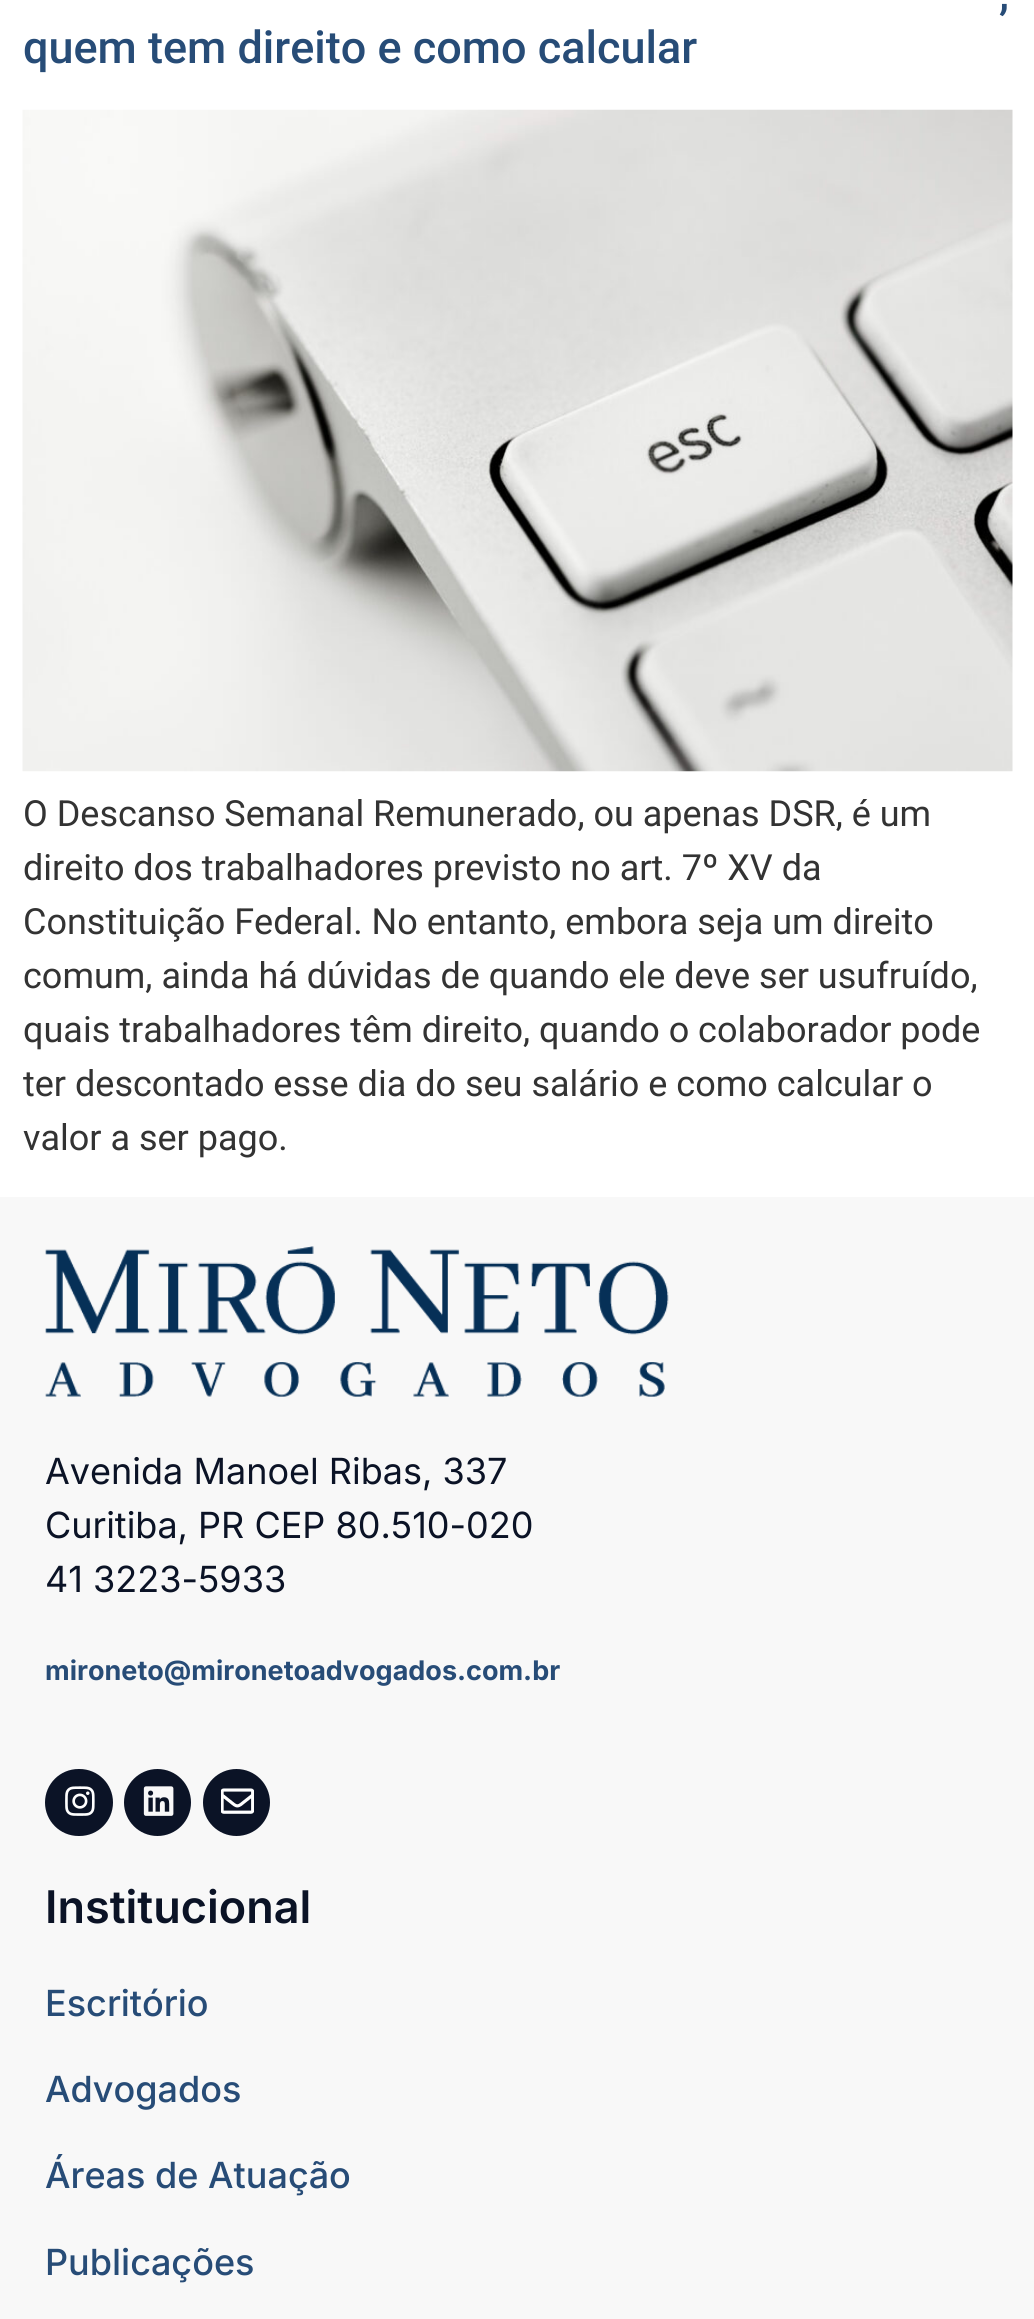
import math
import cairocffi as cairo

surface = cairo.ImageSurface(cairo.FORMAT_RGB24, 1034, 2319)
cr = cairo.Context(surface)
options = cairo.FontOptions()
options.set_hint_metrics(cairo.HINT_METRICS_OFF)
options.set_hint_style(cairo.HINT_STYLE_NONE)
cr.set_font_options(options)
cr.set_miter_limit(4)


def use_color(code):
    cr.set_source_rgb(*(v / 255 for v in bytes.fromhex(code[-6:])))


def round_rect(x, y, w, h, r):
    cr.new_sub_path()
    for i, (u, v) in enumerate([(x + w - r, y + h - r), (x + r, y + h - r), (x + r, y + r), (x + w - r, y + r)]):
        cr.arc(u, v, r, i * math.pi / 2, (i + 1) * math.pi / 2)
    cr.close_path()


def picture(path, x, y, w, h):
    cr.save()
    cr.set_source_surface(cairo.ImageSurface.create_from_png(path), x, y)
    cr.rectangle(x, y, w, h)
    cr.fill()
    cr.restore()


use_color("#ffffff")
cr.paint()
cr.select_font_face("Roboto Medium")
cr.set_font_size(45)
use_color("#274c77")
cr.move_to(999, 9)
cr.show_text(",")
cr.move_to(23, 63)
cr.show_text("quem tem direito e como calcular")
picture("img1.png", 22, 109, 991, 663)
cr.select_font_face("Roboto")
cr.set_font_size(36)
use_color("#333333")
cr.move_to(23, 826)
cr.show_text("O Descanso Semanal Remunerado, ou apenas DSR, é um")
cr.move_to(23, 880)
cr.show_text("direito dos trabalhadores previsto no art. 7º XV da")
cr.move_to(23, 934)
cr.show_text("Constituição Federal. No entanto, embora seja um direito")
cr.move_to(23, 988)
cr.show_text("comum, ainda há dúvidas de quando ele deve ser usufruído,")
cr.move_to(23, 1042)
cr.show_text("quais trabalhadores têm direito, quando o colaborador pode")
cr.move_to(23, 1096)
cr.show_text("ter descontado esse dia do seu salário e como calcular o")
cr.move_to(23, 1150)
cr.show_text("valor a ser pago.")
use_color("#f8f8f8")
cr.rectangle(0, 1197, 1034, 1122)
cr.fill()
picture("img2.png", 45, 1246, 624, 151)
cr.select_font_face("Inter")
use_color("#0b1326")
cr.move_to(45, 1484)
cr.show_text("Avenida Manoel Ribas, 337")
cr.move_to(45, 1538)
cr.show_text("Curitiba, PR CEP 80.510-020")
cr.move_to(45, 1592)
cr.show_text("41 3223-5933")
cr.select_font_face("Inter", cairo.FONT_SLANT_NORMAL, cairo.FONT_WEIGHT_BOLD)
cr.set_font_size(27)
use_color("#274c77")
cr.move_to(45, 1680)
cr.show_text("mironeto@mironetoadvogados.com.br")
use_color("#0b1326")
round_rect(45, 1769, 68, 67, 33.5)
cr.fill()
picture("img3.png", 65, 1786, 30, 30)
cr.arc(157.5, 1802.5, 33.5, 0, 2 * math.pi)
cr.fill()
picture("img4.png", 143, 1786, 31, 30)
cr.arc(236.5, 1802.5, 33.5, 0, 2 * math.pi)
cr.fill()
picture("img5.png", 221, 1788, 33, 26)
cr.select_font_face("Inter SemiBold")
cr.set_font_size(45)
cr.move_to(45, 1923)
cr.show_text("Institucional")
cr.select_font_face("Inter Medium")
cr.set_font_size(36)
use_color("#274c77")
cr.move_to(45, 2016)
cr.show_text("Escritório")
cr.move_to(45, 2102)
cr.show_text("Advogados")
cr.move_to(45, 2188)
cr.show_text("Áreas de Atuação")
cr.move_to(45, 2275)
cr.show_text("Publicações")
surface.write_to_png("result.png")
